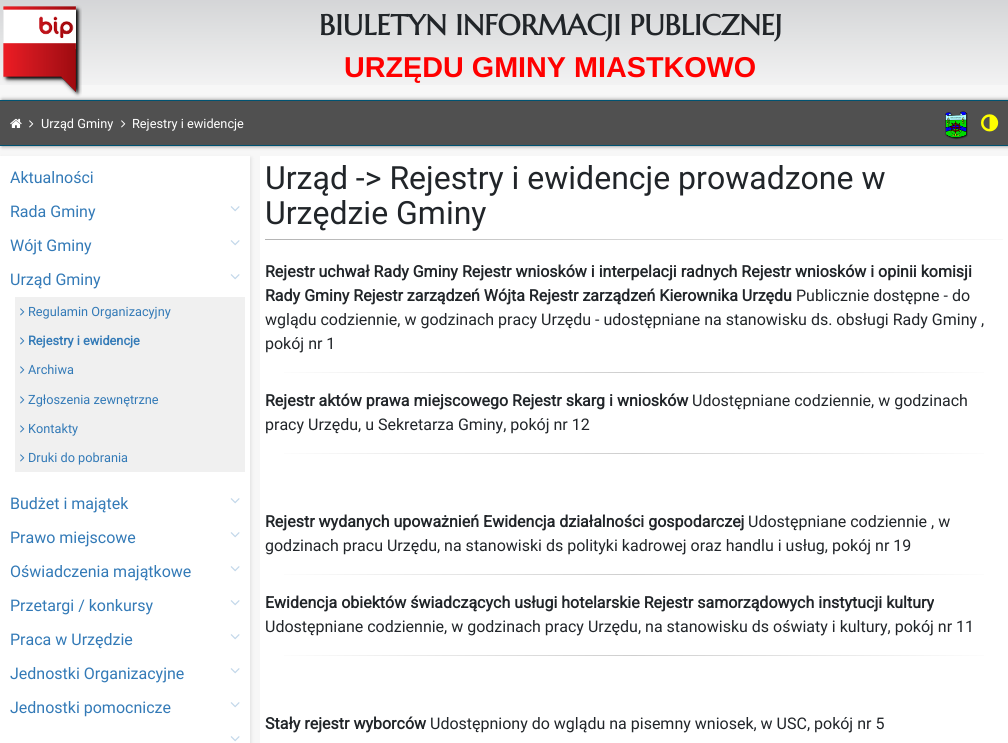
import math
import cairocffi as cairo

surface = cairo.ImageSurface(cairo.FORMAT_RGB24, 1008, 743)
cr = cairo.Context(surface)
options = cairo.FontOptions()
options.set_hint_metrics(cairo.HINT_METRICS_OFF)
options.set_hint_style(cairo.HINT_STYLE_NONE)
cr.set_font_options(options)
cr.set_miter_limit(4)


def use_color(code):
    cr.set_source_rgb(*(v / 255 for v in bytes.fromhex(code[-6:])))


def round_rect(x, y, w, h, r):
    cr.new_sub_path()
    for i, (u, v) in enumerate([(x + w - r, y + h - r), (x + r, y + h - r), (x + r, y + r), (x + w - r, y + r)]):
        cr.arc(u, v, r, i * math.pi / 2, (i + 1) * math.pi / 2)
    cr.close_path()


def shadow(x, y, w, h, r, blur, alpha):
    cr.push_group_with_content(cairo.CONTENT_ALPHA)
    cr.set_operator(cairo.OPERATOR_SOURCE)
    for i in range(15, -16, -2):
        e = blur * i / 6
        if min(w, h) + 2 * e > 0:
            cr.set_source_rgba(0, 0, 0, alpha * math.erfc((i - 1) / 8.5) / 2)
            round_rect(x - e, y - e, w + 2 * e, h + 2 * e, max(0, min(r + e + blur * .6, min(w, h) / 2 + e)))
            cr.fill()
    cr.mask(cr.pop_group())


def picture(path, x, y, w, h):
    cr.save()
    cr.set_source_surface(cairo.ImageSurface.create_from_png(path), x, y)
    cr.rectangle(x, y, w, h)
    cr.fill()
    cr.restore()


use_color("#f7f7f7")
cr.paint()
picture("img1.png", 0, 0, 1008, 85)
use_color("#000000")
shadow(2, 100, 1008, 46, 0, 2, 0.5)
picture("img2.png", 2, 5, 80, 92)
cr.select_font_face("Marcellus", cairo.FONT_SLANT_NORMAL, cairo.FONT_WEIGHT_BOLD)
cr.set_font_size(28.75)
use_color("#212529")
cr.move_to(319, 35)
cr.show_text("BIULETYN INFORMACJI PUBLICZNEJ")
cr.select_font_face("Liberation Sans", cairo.FONT_SLANT_NORMAL, cairo.FONT_WEIGHT_BOLD)
use_color("#ff0000")
cr.move_to(344, 77)
cr.show_text("URZĘDU GMINY MIASTKOWO")
use_color("#505050")
cr.rectangle(0, 101, 1008, 44)
cr.fill()
use_color("#005372")
cr.rectangle(0, 100, 1008, 1)
cr.fill()
cr.rectangle(0, 145, 1008, 1)
cr.fill()
picture("img3.png", 10, 118, 12, 10)
picture("img4.png", 29, 120, 5, 8)
cr.select_font_face("Roboto")
cr.set_font_size(12.75)
use_color("#ffffff")
cr.move_to(41, 128)
cr.show_text("Urząd Gminy")
picture("img4.png", 121, 120, 5, 8)
cr.move_to(132, 128)
cr.show_text("Rejestry i ewidencje")
picture("img5.png", 945, 111, 23, 29)
picture("img6.png", 981, 114, 18, 18)
use_color("#000000")
shadow(1, 158, 250, 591, 0, 2, 0.1)
use_color("#ffffff")
cr.rectangle(0, 156, 250, 587)
cr.fill()
cr.set_font_size(16)
use_color("#337ab7")
cr.move_to(10, 183)
cr.show_text("Aktualności")
cr.move_to(10, 217)
cr.show_text("Rada Gminy")
picture("img7.png", 230, 206, 10, 6)
cr.move_to(10, 251)
cr.show_text("Wójt Gminy")
picture("img7.png", 230, 240, 10, 6)
cr.move_to(10, 285)
cr.show_text("Urząd Gminy")
picture("img7.png", 230, 274, 10, 6)
use_color("#f0f0f0")
cr.rectangle(15, 297, 230, 175)
cr.fill()
picture("img8.png", 20, 308, 5, 8)
cr.set_font_size(12.75)
use_color("#337ab7")
cr.move_to(28, 316)
cr.show_text("Regulamin Organizacyjny")
picture("img8.png", 20, 337, 5, 8)
cr.select_font_face("Roboto", cairo.FONT_SLANT_NORMAL, cairo.FONT_WEIGHT_BOLD)
cr.move_to(28, 345)
cr.show_text("Rejestry i ewidencje")
picture("img8.png", 20, 366, 5, 8)
cr.select_font_face("Roboto")
cr.move_to(28, 374)
cr.show_text("Archiwa")
picture("img8.png", 20, 396, 5, 8)
cr.move_to(28, 404)
cr.show_text("Zgłoszenia zewnętrzne")
picture("img8.png", 20, 425, 5, 8)
cr.move_to(28, 433)
cr.show_text("Kontakty")
picture("img8.png", 20, 454, 5, 8)
cr.move_to(28, 462)
cr.show_text("Druki do pobrania")
cr.set_font_size(16)
cr.move_to(10, 509)
cr.show_text("Budżet i majątek")
picture("img7.png", 230, 498, 10, 6)
cr.move_to(10, 543)
cr.show_text("Prawo miejscowe")
picture("img7.png", 230, 532, 10, 6)
cr.move_to(10, 577)
cr.show_text("Oświadczenia majątkowe")
picture("img7.png", 230, 566, 10, 6)
cr.move_to(10, 611)
cr.show_text("Przetargi / konkursy")
picture("img7.png", 230, 600, 10, 6)
cr.move_to(10, 645)
cr.show_text("Praca w Urzędzie")
picture("img7.png", 230, 634, 10, 6)
cr.move_to(10, 679)
cr.show_text("Jednostki Organizacyjne")
picture("img7.png", 230, 668, 10, 6)
cr.move_to(10, 713)
cr.show_text("Jednostki pomocnicze")
picture("img7.png", 230, 702, 10, 6)
picture("img7.png", 230, 736, 10, 6)
use_color("#ffffff")
cr.rectangle(260, 156, 748, 587)
cr.fill()
cr.set_font_size(32)
use_color("#212529")
cr.move_to(265, 189)
cr.show_text("Urząd -> Rejestry i ewidencje prowadzone w")
cr.move_to(265, 224)
cr.show_text("Urzędzie Gminy")
gradient = cairo.LinearGradient(265, 240, 1003, 239)
gradient.add_color_stop_rgba(0, 0.706, 0.706, 0.706, 1)
gradient.add_color_stop_rgba(1, 0.973, 0.973, 0.973, 1)
cr.set_source(gradient)
cr.rectangle(265, 239, 738, 1)
cr.fill()
cr.select_font_face("Roboto", cairo.FONT_SLANT_NORMAL, cairo.FONT_WEIGHT_BOLD)
cr.set_font_size(16)
use_color("#212529")
cr.move_to(265, 277)
cr.show_text("Rejestr uchwał Rady Gminy Rejestr wniosków i interpelacji radnych Rejestr wniosków i opinii komisji")
cr.move_to(265, 301)
cr.show_text("Rady Gminy Rejestr zarządzeń Wójta Rejestr zarządzeń Kierownika Urzędu")
cr.select_font_face("Roboto")
cr.move_to(796, 301)
cr.show_text("Publicznie dostępne - do")
cr.move_to(265, 325)
cr.show_text("wglądu codziennie, w godzinach pracy Urzędu - udostępniane na stanowisku ds. obsługi Rady Gminy ,")
cr.move_to(265, 349)
cr.show_text("pokój nr 1")
gradient = cairo.LinearGradient(265, 373, 1003, 373)
gradient.add_color_stop_rgba(0, 1, 1, 1, 1)
gradient.add_color_stop_rgba(0.5, 0.808, 0.808, 0.808, 1)
gradient.add_color_stop_rgba(1, 1, 1, 1, 1)
cr.set_source(gradient)
cr.rectangle(284, 372, 700, 1)
cr.fill()
cr.select_font_face("Roboto", cairo.FONT_SLANT_NORMAL, cairo.FONT_WEIGHT_BOLD)
use_color("#212529")
cr.move_to(265, 406)
cr.show_text("Rejestr aktów prawa miejscowego Rejestr skarg i wniosków")
cr.select_font_face("Roboto")
cr.move_to(692, 406)
cr.show_text("Udostępniane codziennie, w godzinach")
cr.move_to(265, 430)
cr.show_text("pracy Urzędu, u Sekretarza Gminy, pokój nr 12")
gradient = cairo.LinearGradient(265, 454, 1003, 454)
gradient.add_color_stop_rgba(0, 1, 1, 1, 1)
gradient.add_color_stop_rgba(0.5, 0.808, 0.808, 0.808, 1)
gradient.add_color_stop_rgba(1, 1, 1, 1, 1)
cr.set_source(gradient)
cr.rectangle(284, 453, 700, 1)
cr.fill()
cr.select_font_face("Roboto", cairo.FONT_SLANT_NORMAL, cairo.FONT_WEIGHT_BOLD)
use_color("#212529")
cr.move_to(265, 527)
cr.show_text("Rejestr wydanych upoważnień Ewidencja działalności gospodarczej")
cr.select_font_face("Roboto")
cr.move_to(748, 527)
cr.show_text("Udostępniane codziennie , w")
cr.move_to(265, 551)
cr.show_text("godzinach pracu Urzędu, na stanowiski ds polityki kadrowej oraz handlu i usług, pokój nr 19")
gradient = cairo.LinearGradient(265, 575, 1003, 575)
gradient.add_color_stop_rgba(0, 1, 1, 1, 1)
gradient.add_color_stop_rgba(0.5, 0.808, 0.808, 0.808, 1)
gradient.add_color_stop_rgba(1, 1, 1, 1, 1)
cr.set_source(gradient)
cr.rectangle(284, 574, 700, 1)
cr.fill()
cr.select_font_face("Roboto", cairo.FONT_SLANT_NORMAL, cairo.FONT_WEIGHT_BOLD)
use_color("#212529")
cr.move_to(265, 608)
cr.show_text("Ewidencja obiektów świadczących usługi hotelarskie Rejestr samorządowych instytucji kultury")
cr.select_font_face("Roboto")
cr.move_to(265, 632)
cr.show_text("Udostępniane codziennie, w godzinach pracy Urzędu, na stanowisku ds oświaty i kultury, pokój nr 11")
gradient = cairo.LinearGradient(265, 656, 1003, 656)
gradient.add_color_stop_rgba(0, 1, 1, 1, 1)
gradient.add_color_stop_rgba(0.5, 0.808, 0.808, 0.808, 1)
gradient.add_color_stop_rgba(1, 1, 1, 1, 1)
cr.set_source(gradient)
cr.rectangle(284, 655, 700, 1)
cr.fill()
cr.select_font_face("Roboto", cairo.FONT_SLANT_NORMAL, cairo.FONT_WEIGHT_BOLD)
use_color("#212529")
cr.move_to(265, 729)
cr.show_text("Stały rejestr wyborców")
cr.select_font_face("Roboto")
cr.move_to(430, 729)
cr.show_text("Udostępniony do wglądu na pisemny wniosek, w USC, pokój nr 5")
surface.write_to_png("result.png")
